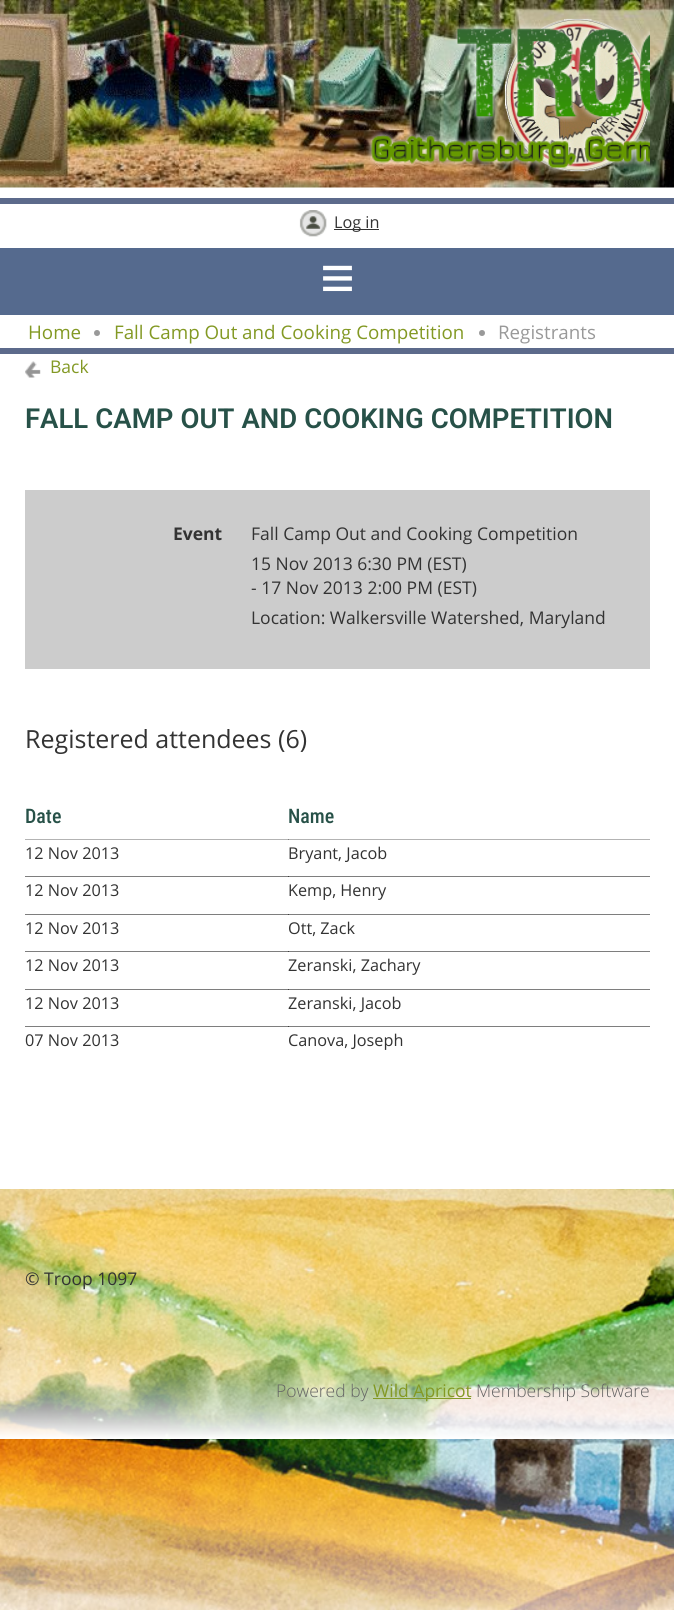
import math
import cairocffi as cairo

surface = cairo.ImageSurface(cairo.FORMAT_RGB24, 674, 1610)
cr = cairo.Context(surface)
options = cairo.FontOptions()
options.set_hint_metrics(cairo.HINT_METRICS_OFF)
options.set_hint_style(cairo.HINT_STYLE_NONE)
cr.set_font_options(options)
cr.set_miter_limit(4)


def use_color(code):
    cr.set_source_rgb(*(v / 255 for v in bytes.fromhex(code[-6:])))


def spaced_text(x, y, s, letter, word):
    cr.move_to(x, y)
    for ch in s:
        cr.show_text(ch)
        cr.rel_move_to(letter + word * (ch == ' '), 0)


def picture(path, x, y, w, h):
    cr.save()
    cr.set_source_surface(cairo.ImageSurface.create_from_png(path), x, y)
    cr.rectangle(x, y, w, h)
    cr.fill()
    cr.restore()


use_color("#ffffff")
cr.paint()
picture("img1.png", 0, 1189, 674, 421)
picture("img2.png", 0, 0, 674, 188)
picture("img3.png", 505, 18, 145, 154)
picture("img4.png", 451, 23, 199, 99)
picture("img5.png", 366, 130, 284, 44)
use_color("#5c6a8b")
cr.rectangle(0, 198, 674, 6)
cr.fill()
picture("img6.png", 299, 210, 28, 27)
use_color("#333333")
cr.rectangle(334, 229, 45, 1)
cr.fill()
cr.select_font_face("Open Sans")
cr.set_font_size(16.25)
cr.move_to(334, 228)
cr.show_text("Log in")
use_color("#556a8e")
cr.rectangle(0, 248, 674, 67)
cr.fill()
cr.select_font_face("Liberation Serif", cairo.FONT_SLANT_NORMAL, cairo.FONT_WEIGHT_BOLD)
cr.set_font_size(62)
use_color("#ffffff")
cr.move_to(320, 299)
cr.show_text("≡")
cr.select_font_face("Open Sans")
cr.set_font_size(18.75)
use_color("#839924")
cr.move_to(28, 339)
cr.show_text("Home")
use_color("#999999")
cr.new_path()
cr.arc(97, 333, 3, 0, 2 * math.pi)
cr.fill()
use_color("#839924")
cr.move_to(114, 339)
cr.show_text("Fall Camp Out and Cooking Competition")
use_color("#999999")
cr.new_path()
cr.arc(482, 333, 3, 0, 2 * math.pi)
cr.fill()
cr.move_to(498, 339)
cr.show_text("Registrants")
use_color("#5c6a8b")
cr.rectangle(0, 348, 674, 6)
cr.fill()
picture("img7.png", 25, 361, 16, 17)
cr.set_font_size(17.5)
use_color("#839924")
cr.move_to(50, 373)
cr.show_text("Back")
cr.select_font_face("Roboto SemiBold")
cr.set_font_size(27.5)
use_color("#275148")
spaced_text(25, 428, "FALL CAMP OUT AND COOKING COMPETITION", 0, 0.25)
use_color("#cccccc")
cr.rectangle(25, 490, 625, 179)
cr.fill()
cr.select_font_face("Open Sans", cairo.FONT_SLANT_NORMAL, cairo.FONT_WEIGHT_BOLD)
cr.set_font_size(17.5)
use_color("#333333")
cr.move_to(173, 540)
cr.show_text("Event")
cr.select_font_face("Open Sans")
cr.move_to(251, 540)
cr.show_text("Fall Camp Out and Cooking Competition")
cr.move_to(251, 570)
cr.show_text("15 Nov 2013 6:30 PM (EST)")
cr.move_to(251, 594)
cr.show_text("- 17 Nov 2013 2:00 PM (EST)")
cr.move_to(251, 624)
cr.show_text("Location: Walkersville Watershed, Maryland")
cr.set_font_size(25)
cr.move_to(25, 748)
cr.show_text("Registered attendees (6)")
cr.select_font_face("Roboto Condensed Medium")
cr.set_font_size(20)
use_color("#275148")
cr.move_to(25, 823)
cr.show_text("Date")
cr.move_to(288, 823)
cr.show_text("Name")
use_color("#b3b3b3")
cr.rectangle(288, 839, 362, 1)
cr.fill()
cr.set_source_rgba(0, 0, 0, 0.3)
cr.rectangle(25, 839, 264, 1)
cr.fill()
use_color("#b3b3b3")
cr.rectangle(288, 876, 362, 1)
cr.fill()
cr.set_source_rgba(0, 0, 0, 0.3)
cr.rectangle(25, 876, 264, 1)
cr.fill()
cr.rectangle(288, 876, 362, 1)
cr.fill()
cr.rectangle(25, 876, 264, 1)
cr.fill()
cr.select_font_face("Open Sans")
cr.set_font_size(16.25)
use_color("#333333")
cr.move_to(25, 859)
cr.show_text("12 Nov 2013")
cr.move_to(288, 859)
cr.show_text("Bryant, Jacob")
use_color("#b3b3b3")
cr.rectangle(288, 914, 362, 1)
cr.fill()
cr.set_source_rgba(0, 0, 0, 0.3)
cr.rectangle(25, 914, 264, 1)
cr.fill()
cr.rectangle(288, 914, 362, 1)
cr.fill()
cr.rectangle(25, 914, 264, 1)
cr.fill()
use_color("#333333")
cr.move_to(25, 896)
cr.show_text("12 Nov 2013")
cr.move_to(288, 896)
cr.show_text("Kemp, Henry")
use_color("#b3b3b3")
cr.rectangle(288, 951, 362, 1)
cr.fill()
cr.set_source_rgba(0, 0, 0, 0.3)
cr.rectangle(25, 951, 264, 1)
cr.fill()
cr.rectangle(288, 951, 362, 1)
cr.fill()
cr.rectangle(25, 951, 264, 1)
cr.fill()
use_color("#333333")
cr.move_to(25, 934)
cr.show_text("12 Nov 2013")
cr.move_to(288, 934)
cr.show_text("Ott, Zack")
use_color("#b3b3b3")
cr.rectangle(288, 989, 362, 1)
cr.fill()
cr.set_source_rgba(0, 0, 0, 0.3)
cr.rectangle(25, 989, 264, 1)
cr.fill()
cr.rectangle(288, 989, 362, 1)
cr.fill()
cr.rectangle(25, 989, 264, 1)
cr.fill()
use_color("#333333")
cr.move_to(25, 971)
cr.show_text("12 Nov 2013")
cr.move_to(288, 971)
cr.show_text("Zeranski, Zachary")
use_color("#b3b3b3")
cr.rectangle(288, 1026, 362, 1)
cr.fill()
cr.set_source_rgba(0, 0, 0, 0.3)
cr.rectangle(25, 1026, 264, 1)
cr.fill()
cr.rectangle(288, 1026, 362, 1)
cr.fill()
cr.rectangle(25, 1026, 264, 1)
cr.fill()
use_color("#333333")
cr.move_to(25, 1009)
cr.show_text("12 Nov 2013")
cr.move_to(288, 1009)
cr.show_text("Zeranski, Jacob")
cr.move_to(25, 1046)
cr.show_text("07 Nov 2013")
cr.move_to(288, 1046)
cr.show_text("Canova, Joseph")
cr.set_font_size(17.5)
cr.move_to(25, 1285)
cr.show_text("© Troop 1097")
cr.select_font_face("Open Sans Light")
use_color("#646464")
cr.move_to(276, 1397)
cr.show_text("Powered by")
use_color("#839924")
cr.rectangle(373, 1398, 98, 1)
cr.fill()
cr.select_font_face("Open Sans")
cr.move_to(373, 1397)
cr.show_text("Wild Apricot")
cr.select_font_face("Open Sans Light")
use_color("#646464")
cr.move_to(476, 1397)
cr.show_text("Membership Software")
surface.write_to_png("result.png")
